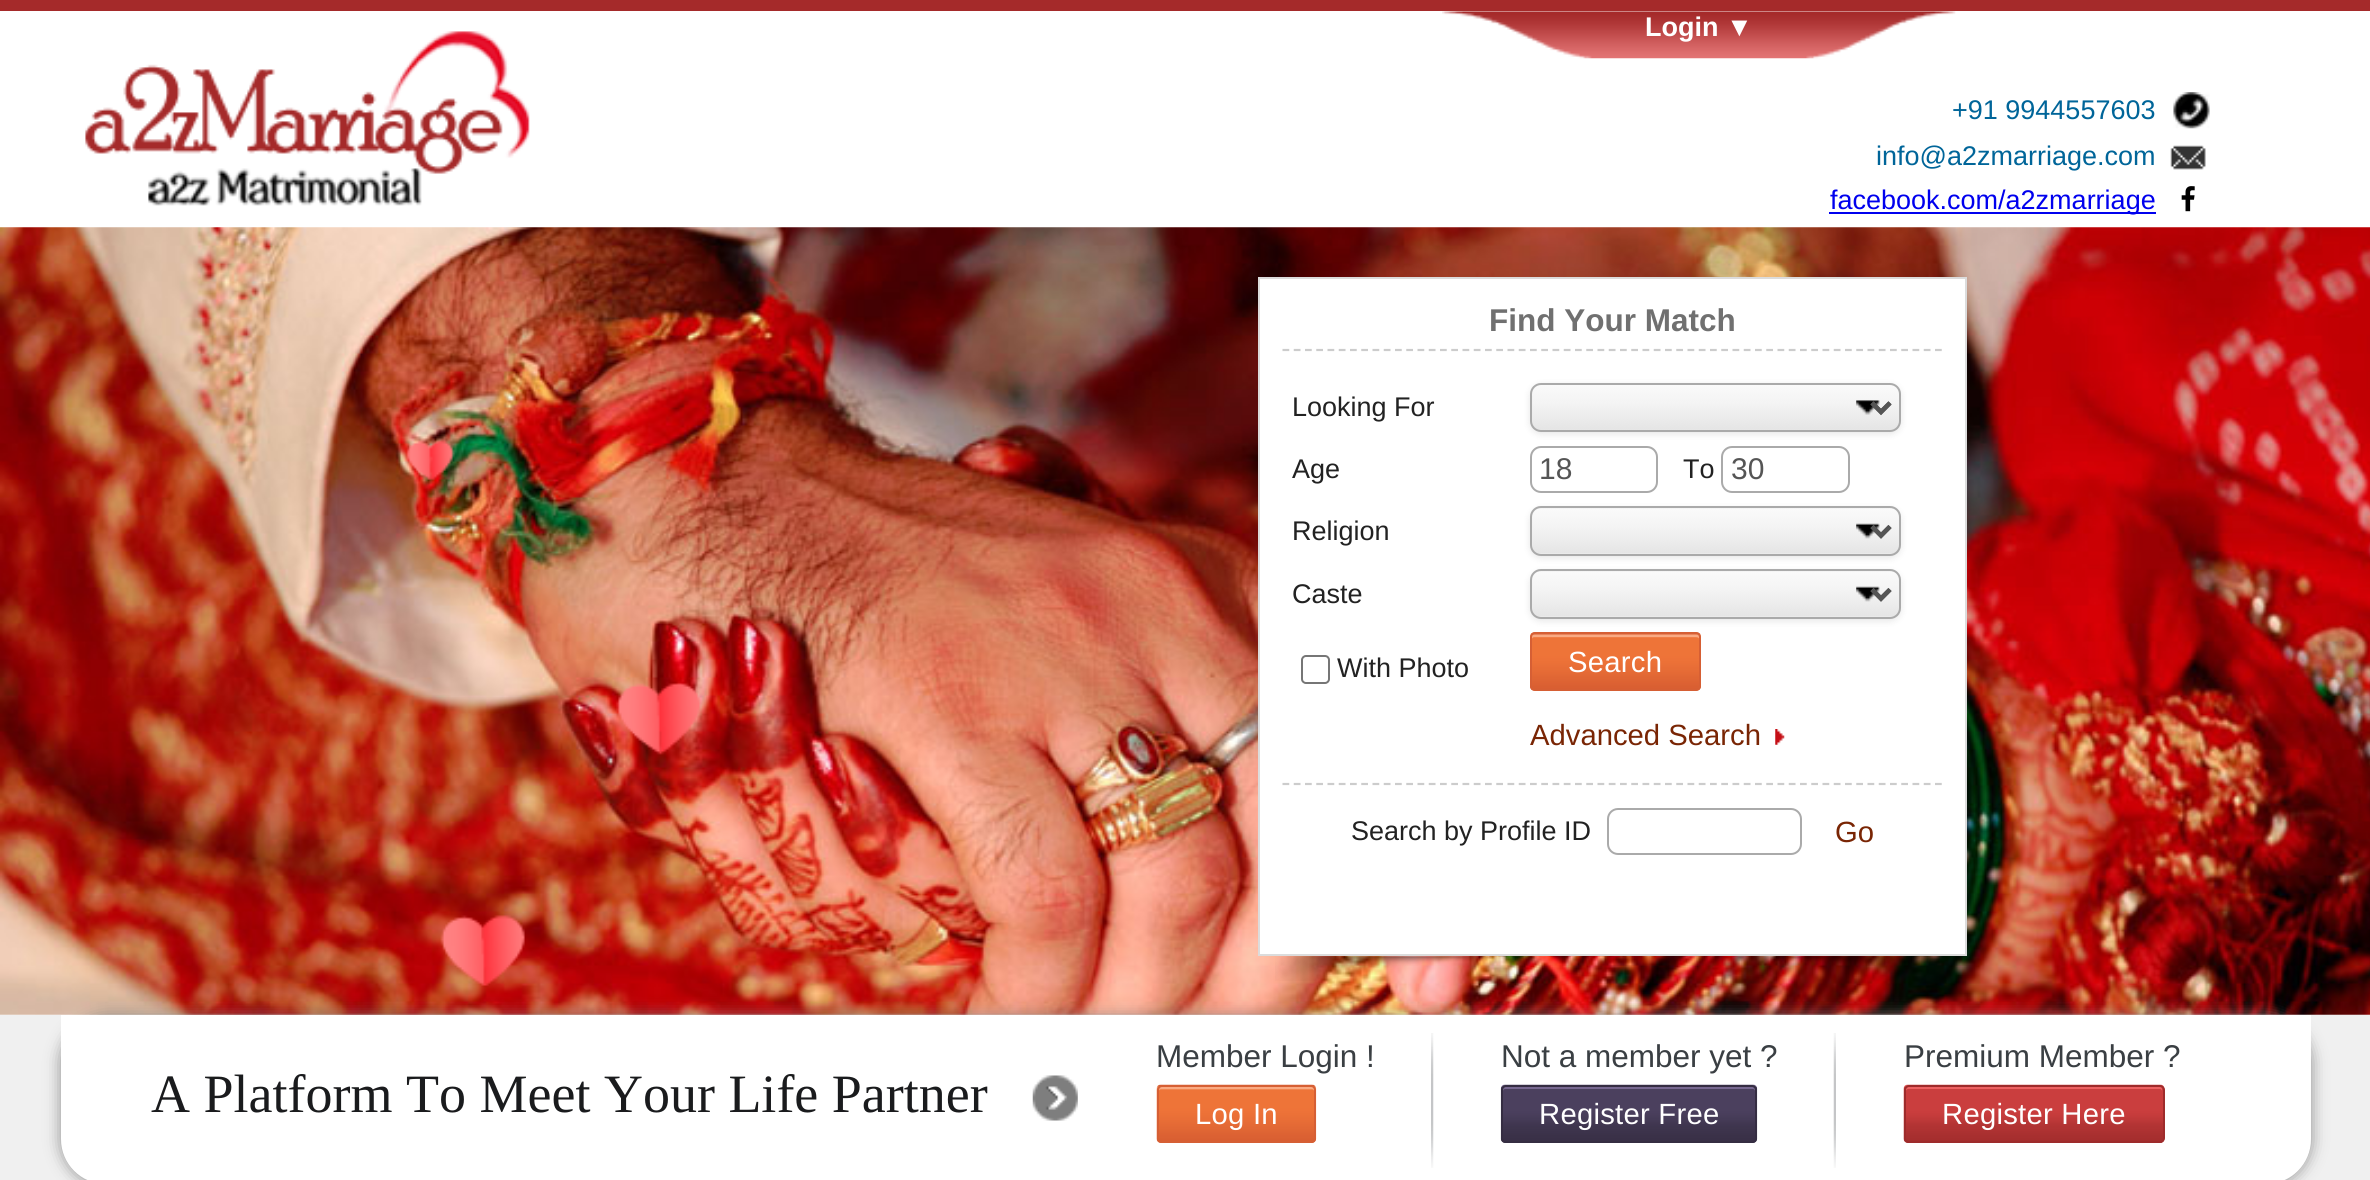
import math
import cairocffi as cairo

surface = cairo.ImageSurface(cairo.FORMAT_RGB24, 2370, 1180)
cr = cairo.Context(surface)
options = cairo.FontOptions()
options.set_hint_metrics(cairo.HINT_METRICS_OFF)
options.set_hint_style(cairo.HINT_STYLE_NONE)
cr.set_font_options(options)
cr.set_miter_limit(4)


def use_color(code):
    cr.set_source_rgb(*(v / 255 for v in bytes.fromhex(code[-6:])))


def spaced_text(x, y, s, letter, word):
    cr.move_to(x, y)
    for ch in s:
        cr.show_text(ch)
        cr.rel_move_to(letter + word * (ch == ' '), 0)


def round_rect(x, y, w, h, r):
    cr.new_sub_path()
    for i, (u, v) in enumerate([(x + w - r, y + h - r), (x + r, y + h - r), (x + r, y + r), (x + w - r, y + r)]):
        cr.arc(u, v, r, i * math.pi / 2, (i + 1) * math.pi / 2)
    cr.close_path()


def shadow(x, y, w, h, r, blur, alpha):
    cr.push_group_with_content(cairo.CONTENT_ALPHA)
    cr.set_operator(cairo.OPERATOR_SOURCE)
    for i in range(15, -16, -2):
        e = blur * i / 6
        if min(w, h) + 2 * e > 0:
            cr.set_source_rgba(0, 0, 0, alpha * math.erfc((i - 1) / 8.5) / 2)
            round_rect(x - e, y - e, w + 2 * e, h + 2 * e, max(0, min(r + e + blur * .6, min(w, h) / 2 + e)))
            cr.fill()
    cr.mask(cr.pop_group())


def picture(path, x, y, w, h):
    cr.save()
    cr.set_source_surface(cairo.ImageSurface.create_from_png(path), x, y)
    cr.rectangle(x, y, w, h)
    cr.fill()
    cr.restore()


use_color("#ffffff")
cr.paint()
use_color("#a52a2a")
cr.rectangle(0, 0, 2370, 11)
cr.fill()
picture("img1.png", 1442, 11, 514, 48)
cr.select_font_face("Liberation Sans", cairo.FONT_SLANT_NORMAL, cairo.FONT_WEIGHT_BOLD)
cr.set_font_size(27)
use_color("#ffffff")
cr.move_to(1645, 36)
cr.show_text("Login ▼")
picture("img2.png", 85, 31, 445, 175)
cr.select_font_face("Liberation Sans")
use_color("#006599")
cr.move_to(1952, 119)
cr.show_text("+91 9944557603")
picture("img3.png", 2173, 92, 37, 37)
cr.move_to(1876, 165)
cr.show_text("info@a2zmarriage.com")
picture("img4.png", 2170, 145, 36, 25)
use_color("#0000ee")
cr.rectangle(1829, 212, 327, 2)
cr.fill()
cr.move_to(1830, 209)
cr.show_text("facebook.com/a2zmarriage")
picture("img5.png", 2181, 186, 14, 26)
picture("img6.png", 0, 227, 2370, 788)
picture("img7.png", 406, 440, 295, 546)
use_color("#ffffff")
cr.rectangle(1259, 278, 707, 677)
cr.fill_preserve()
use_color("#dcdcdc")
cr.stroke()
cr.select_font_face("Liberation Sans", cairo.FONT_SLANT_NORMAL, cairo.FONT_WEIGHT_BOLD)
cr.set_font_size(31.5)
use_color("#707070")
cr.move_to(1489, 331)
cr.show_text("Find Your Match")
cr.new_path()
cr.move_to(1282.5, 350)
cr.line_to(1942, 350)
use_color("#cccccc")
cr.set_line_width(2.2)
cr.set_dash([6.75, 4.5])
cr.stroke()
cr.select_font_face("Liberation Sans")
cr.set_font_size(27)
use_color("#222222")
cr.move_to(1292, 416)
cr.show_text("Looking For")
use_color("#000000")
shadow(1530, 385, 371, 49, 11, 3.5, 0.1)
picture("img8.png", 1532, 385, 367, 45)
round_rect(1531, 384, 369, 47, 10)
use_color("#aaaaaa")
cr.set_line_width(2)
cr.set_dash([])
cr.stroke()
cr.new_path()
cr.move_to(1872, 403)
cr.line_to(1881, 412)
cr.line_to(1890, 403)
use_color("#555555")
cr.set_line_width(4.5)
cr.stroke()
use_color("#222222")
cr.move_to(1292, 478)
cr.show_text("Age")
round_rect(1531, 447, 126, 45, 10)
use_color("#aaaaaa")
cr.set_line_width(2)
cr.stroke()
cr.set_font_size(30)
use_color("#555555")
cr.move_to(1539, 479)
cr.show_text("18")
cr.set_font_size(27)
use_color("#222222")
cr.move_to(1683, 478)
cr.show_text("To")
round_rect(1722, 447, 127, 45, 10)
use_color("#aaaaaa")
cr.stroke()
cr.set_font_size(30)
use_color("#555555")
cr.move_to(1731, 479)
cr.show_text("30")
cr.set_font_size(27)
use_color("#222222")
cr.move_to(1292, 540)
cr.show_text("Religion")
use_color("#000000")
shadow(1530, 509, 371, 49, 11, 3.5, 0.1)
use_color("#efefef")
round_rect(1530, 506, 371, 50, 11)
cr.fill()
picture("img9.png", 1532, 508, 367, 46)
round_rect(1531, 507, 369, 48, 10)
use_color("#aaaaaa")
cr.stroke()
cr.new_path()
cr.move_to(1872, 526.5)
cr.line_to(1881, 535.5)
cr.line_to(1890, 526.5)
use_color("#555555")
cr.set_line_width(4.5)
cr.stroke()
use_color("#222222")
cr.move_to(1292, 603)
cr.show_text("Caste")
use_color("#000000")
shadow(1530, 572, 371, 49, 11, 3.5, 0.1)
use_color("#efefef")
round_rect(1530, 569, 371, 50, 11)
cr.fill()
picture("img10.png", 1532, 571, 367, 46)
round_rect(1531, 570, 369, 48, 10)
use_color("#aaaaaa")
cr.set_line_width(2)
cr.stroke()
cr.new_path()
cr.move_to(1872, 589.5)
cr.line_to(1881, 598.5)
cr.line_to(1890, 589.5)
use_color("#555555")
cr.set_line_width(4.5)
cr.stroke()
round_rect(1302, 656, 27, 27, 4)
use_color("#767676")
cr.set_line_width(2)
cr.stroke()
use_color("#222222")
cr.move_to(1337, 677)
cr.show_text("With Photo")
picture("img11.png", 1530, 632, 171, 59)
use_color("#faaa82")
cr.new_path()
cr.move_to(1534, 637)
cr.line_to(1696, 637)
cr.curve_to(1698, 637, 1699, 638, 1699, 639)
cr.curve_to(1699, 637, 1699, 635, 1697, 635)
cr.line_to(1534, 635)
cr.curve_to(1532, 635, 1532, 637, 1532, 639)
cr.curve_to(1532, 638, 1533, 637, 1534, 637)
cr.close_path()
cr.fill()
round_rect(1531, 633, 169, 57, 4)
use_color("#d65f34")
cr.stroke()
cr.set_font_size(29.25)
use_color("#ffffff")
spaced_text(1568, 672, "Search", 0.25, 0)
use_color("#792504")
cr.move_to(1530, 745)
cr.show_text("Advanced Search")
picture("img12.png", 1775, 729, 10, 16)
cr.new_path()
cr.move_to(1282.5, 784)
cr.line_to(1942, 784)
use_color("#cccccc")
cr.set_line_width(2.2)
cr.set_dash([6.75, 4.5])
cr.stroke()
cr.set_font_size(27)
use_color("#222222")
cr.move_to(1351, 840)
cr.show_text("Search by Profile ID")
round_rect(1608, 809, 193, 45, 10)
use_color("#aaaaaa")
cr.set_line_width(2)
cr.set_dash([])
cr.stroke()
cr.set_font_size(29.25)
use_color("#792504")
cr.move_to(1835, 842)
cr.show_text("Go")
picture("img13.png", 1275, 956, 253, 25)
picture("img14.png", 1697, 956, 238, 18)
use_color("#f0f0f0")
cr.rectangle(0, 1015, 2370, 165)
cr.fill()
use_color("#8d8d8d")
shadow(61, 1017, 2250, 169, 45, 8, 1)
use_color("#ffffff")
cr.new_path()
cr.move_to(61, 1015)
cr.line_to(2311, 1015)
cr.line_to(2311, 1139)
cr.curve_to(2311, 1164, 2291, 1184, 2266, 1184)
cr.line_to(106, 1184)
cr.curve_to(81, 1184, 61, 1164, 61, 1139)
cr.close_path()
cr.fill()
cr.select_font_face("Liberation Serif")
cr.set_font_size(54)
use_color("#1a1b1d")
cr.move_to(151, 1112)
cr.show_text("A Platform To Meet Your Life Partner")
picture("img15.png", 1032, 1075, 46, 46)
cr.select_font_face("Liberation Sans")
cr.set_font_size(31.5)
use_color("#3a3f43")
cr.move_to(1156, 1067)
cr.show_text("Member Login !")
picture("img16.png", 1156, 1084, 161, 59)
use_color("#faaa82")
cr.new_path()
cr.move_to(1161, 1089)
cr.line_to(1312, 1089)
cr.curve_to(1313, 1089, 1314, 1090, 1314, 1091)
cr.curve_to(1314, 1089, 1314, 1087, 1312, 1087)
cr.line_to(1160, 1087)
cr.curve_to(1159, 1088, 1159, 1090, 1159, 1091)
cr.curve_to(1159, 1090, 1160, 1089, 1161, 1089)
cr.close_path()
cr.fill()
round_rect(1158, 1086, 157, 56, 4)
use_color("#d65f34")
cr.stroke()
cr.set_font_size(29.25)
use_color("#ffffff")
spaced_text(1195, 1124, "Log In", 0.25, 0)
picture("img17.png", 1431, 1033, 3, 135)
cr.set_font_size(31.5)
use_color("#3a3f43")
cr.move_to(1501, 1067)
cr.show_text("Not a member yet ?")
picture("img18.png", 1500, 1084, 258, 59)
use_color("#776890")
cr.new_path()
cr.move_to(1505, 1089)
cr.line_to(1753, 1089)
cr.curve_to(1754, 1089, 1755, 1090, 1755, 1091)
cr.line_to(1755, 1089)
cr.curve_to(1755, 1088, 1754, 1087, 1753, 1087)
cr.line_to(1505, 1087)
cr.curve_to(1504, 1087, 1503, 1088, 1503, 1089)
cr.line_to(1503, 1091)
cr.curve_to(1503, 1090, 1504, 1089, 1505, 1089)
cr.close_path()
cr.fill()
round_rect(1502, 1086, 254, 56, 4)
use_color("#352d42")
cr.stroke()
cr.set_font_size(29.25)
use_color("#ffffff")
spaced_text(1539, 1124, "Register Free", 0.25, 0)
picture("img19.png", 1833, 1033, 3, 135)
cr.set_font_size(31.5)
use_color("#3a3f43")
cr.move_to(1904, 1067)
cr.show_text("Premium Member ?")
picture("img20.png", 1903, 1084, 262, 59)
use_color("#ec6161")
cr.new_path()
cr.move_to(1908, 1089)
cr.line_to(2160, 1089)
cr.curve_to(2161, 1089, 2162, 1090, 2162, 1091)
cr.line_to(2162, 1089)
cr.curve_to(2162, 1088, 2161, 1087, 2160, 1087)
cr.line_to(1908, 1087)
cr.curve_to(1907, 1087, 1906, 1088, 1906, 1089)
cr.line_to(1906, 1091)
cr.curve_to(1906, 1090, 1907, 1089, 1908, 1089)
cr.close_path()
cr.fill()
round_rect(1905, 1086, 259, 56, 4)
use_color("#9e2b2b")
cr.stroke()
cr.set_font_size(29.25)
use_color("#ffffff")
spaced_text(1942, 1124, "Register Here", 0.25, 0)
surface.write_to_png("result.png")
